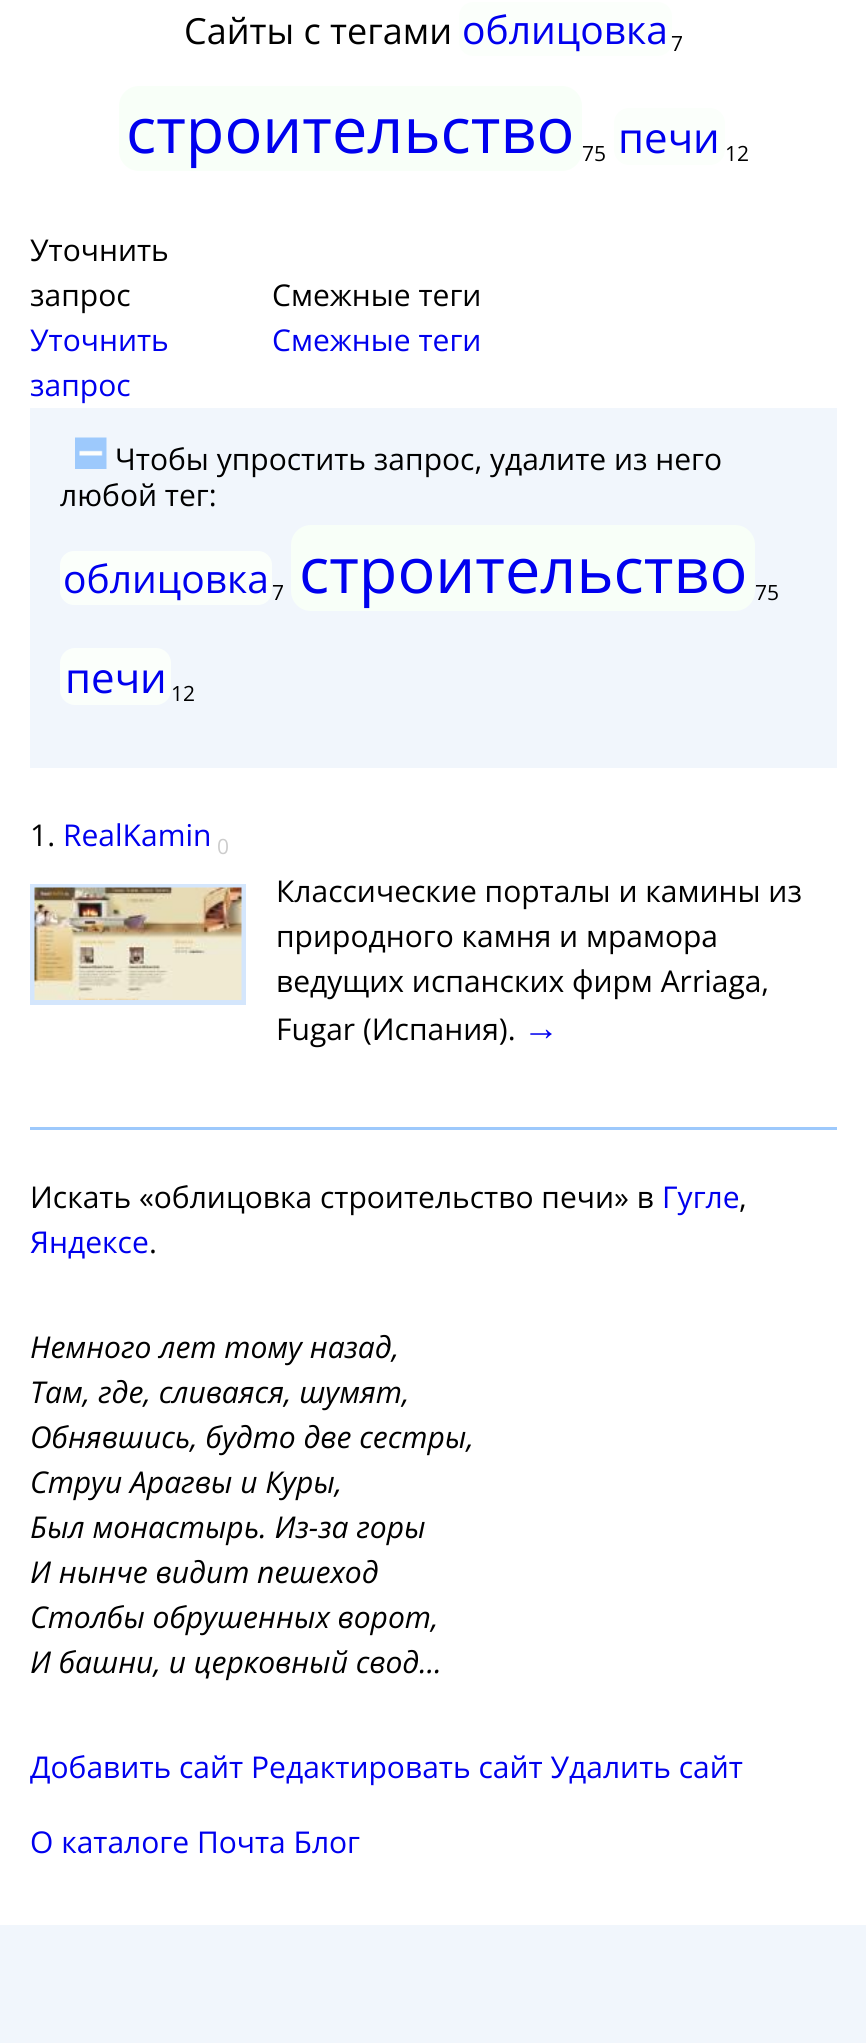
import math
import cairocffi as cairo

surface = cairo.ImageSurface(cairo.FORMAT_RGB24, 866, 2043)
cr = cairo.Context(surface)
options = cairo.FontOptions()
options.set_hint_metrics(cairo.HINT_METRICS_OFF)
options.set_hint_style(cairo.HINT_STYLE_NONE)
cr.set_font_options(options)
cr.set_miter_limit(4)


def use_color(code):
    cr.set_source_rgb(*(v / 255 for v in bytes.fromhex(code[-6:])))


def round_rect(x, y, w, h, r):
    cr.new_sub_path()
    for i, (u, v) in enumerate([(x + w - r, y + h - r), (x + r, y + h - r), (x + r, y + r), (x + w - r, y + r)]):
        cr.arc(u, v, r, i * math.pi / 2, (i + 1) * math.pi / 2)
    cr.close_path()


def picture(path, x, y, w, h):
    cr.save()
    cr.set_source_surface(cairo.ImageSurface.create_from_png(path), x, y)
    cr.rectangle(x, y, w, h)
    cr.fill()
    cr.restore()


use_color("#ffffff")
cr.paint()
cr.select_font_face("Open Sans")
cr.set_font_size(36)
use_color("#000000")
cr.move_to(184, 44)
cr.show_text("Сайты с тегами")
use_color("#fbfffb")
round_rect(459, 2, 213, 54, 14)
cr.fill()
cr.set_font_size(39)
use_color("#0000ee")
cr.move_to(462, 44)
cr.show_text("облицовка")
cr.set_font_size(21)
use_color("#000000")
cr.move_to(671, 51)
cr.show_text("7")
use_color("#f8fff8")
round_rect(119, 86, 463, 85, 20)
cr.fill()
cr.set_font_size(63)
use_color("#0000ee")
cr.move_to(126, 153)
cr.show_text("строительство")
cr.set_font_size(21)
use_color("#000000")
cr.move_to(582, 161)
cr.show_text("75")
use_color("#fbfffb")
round_rect(614, 108, 111, 57, 15)
cr.fill()
cr.set_font_size(42)
use_color("#0000ee")
cr.move_to(618, 153)
cr.show_text("печи")
cr.set_font_size(21)
use_color("#000000")
cr.move_to(725, 161)
cr.show_text("12")
cr.set_font_size(30)
cr.move_to(30, 261)
cr.show_text("Уточнить")
cr.move_to(30, 306)
cr.show_text("запрос")
use_color("#0000ee")
cr.move_to(30, 351)
cr.show_text("Уточнить")
cr.move_to(30, 396)
cr.show_text("запрос")
use_color("#000000")
cr.move_to(272, 306)
cr.show_text("Смежные теги")
use_color("#0000ee")
cr.move_to(272, 351)
cr.show_text("Смежные теги")
use_color("#f1f6fc")
cr.rectangle(30, 408, 807, 360)
cr.fill()
picture("img1.png", 75, 437, 32, 32)
use_color("#000000")
cr.move_to(115, 470)
cr.show_text("Чтобы упростить запрос, удалите из него")
cr.move_to(60, 506)
cr.show_text("любой тег:")
use_color("#fbfffb")
round_rect(60, 551, 212, 54, 14)
cr.fill()
cr.set_font_size(39)
use_color("#0000ee")
cr.move_to(63, 593)
cr.show_text("облицовка")
cr.set_font_size(21)
use_color("#000000")
cr.move_to(272, 600)
cr.show_text("7")
use_color("#f8fff8")
round_rect(291, 525, 464, 86, 20)
cr.fill()
cr.set_font_size(63)
use_color("#0000ee")
cr.move_to(299, 593)
cr.show_text("строительство")
cr.set_font_size(21)
use_color("#000000")
cr.move_to(755, 600)
cr.show_text("75")
use_color("#fbfffb")
round_rect(60, 648, 111, 57, 15)
cr.fill()
cr.set_font_size(42)
use_color("#0000ee")
cr.move_to(65, 693)
cr.show_text("печи")
cr.set_font_size(21)
use_color("#000000")
cr.move_to(171, 701)
cr.show_text("12")
cr.set_font_size(30)
cr.move_to(30, 846)
cr.show_text("1.")
use_color("#0000ee")
cr.move_to(63, 846)
cr.show_text("RealKamin")
cr.set_font_size(21)
use_color("#cccccc")
cr.move_to(217, 854)
cr.show_text("0")
cr.rectangle(32.5, 886.5, 211, 116)
use_color("#d4e6fc")
cr.set_line_width(5)
cr.stroke()
picture("img2.png", 34, 887, 208, 113)
cr.set_font_size(30)
use_color("#000000")
cr.move_to(276, 902)
cr.show_text("Классические порталы и камины из")
cr.move_to(276, 947)
cr.show_text("природного камня и мрамора")
cr.move_to(276, 992)
cr.show_text("ведущих испанских фирм Arriaga,")
cr.move_to(276, 1040)
cr.show_text("Fugar (Испания).")
cr.select_font_face("Liberation Sans")
cr.set_font_size(36)
use_color("#0000ee")
cr.move_to(523, 1040)
cr.show_text("→")
use_color("#9dc9fc")
cr.rectangle(30, 1127, 807, 3)
cr.fill()
cr.select_font_face("Open Sans")
cr.set_font_size(30)
use_color("#000000")
cr.move_to(30, 1208)
cr.show_text("Искать «облицовка строительство печи» в")
use_color("#0000ee")
cr.move_to(662, 1208)
cr.show_text("Гугле")
use_color("#000000")
cr.move_to(739, 1208)
cr.show_text(",")
use_color("#0000ee")
cr.move_to(30, 1253)
cr.show_text("Яндексе")
use_color("#000000")
cr.move_to(149, 1253)
cr.show_text(".")
cr.select_font_face("Open Sans", cairo.FONT_SLANT_ITALIC)
cr.move_to(30, 1358)
cr.show_text("Немного лет тому назад,")
cr.move_to(30, 1403)
cr.show_text("Там, где, сливаяся, шумят,")
cr.move_to(30, 1448)
cr.show_text("Обнявшись, будто две сестры,")
cr.move_to(30, 1493)
cr.show_text("Струи Арагвы и Куры,")
cr.move_to(30, 1538)
cr.show_text("Был монастырь. Из-за горы")
cr.move_to(30, 1583)
cr.show_text("И нынче видит пешеход")
cr.move_to(30, 1628)
cr.show_text("Столбы обрушенных ворот,")
cr.move_to(30, 1673)
cr.show_text("И башни, и церковный свод...")
cr.select_font_face("Open Sans")
use_color("#0000ee")
cr.move_to(30, 1778)
cr.show_text("Добавить сайт Редактировать сайт Удалить сайт")
cr.move_to(30, 1853)
cr.show_text("О каталоге Почта Блог")
use_color("#f1f6fc")
cr.rectangle(0, 1925, 866, 118)
cr.fill()
surface.write_to_png("result.png")
